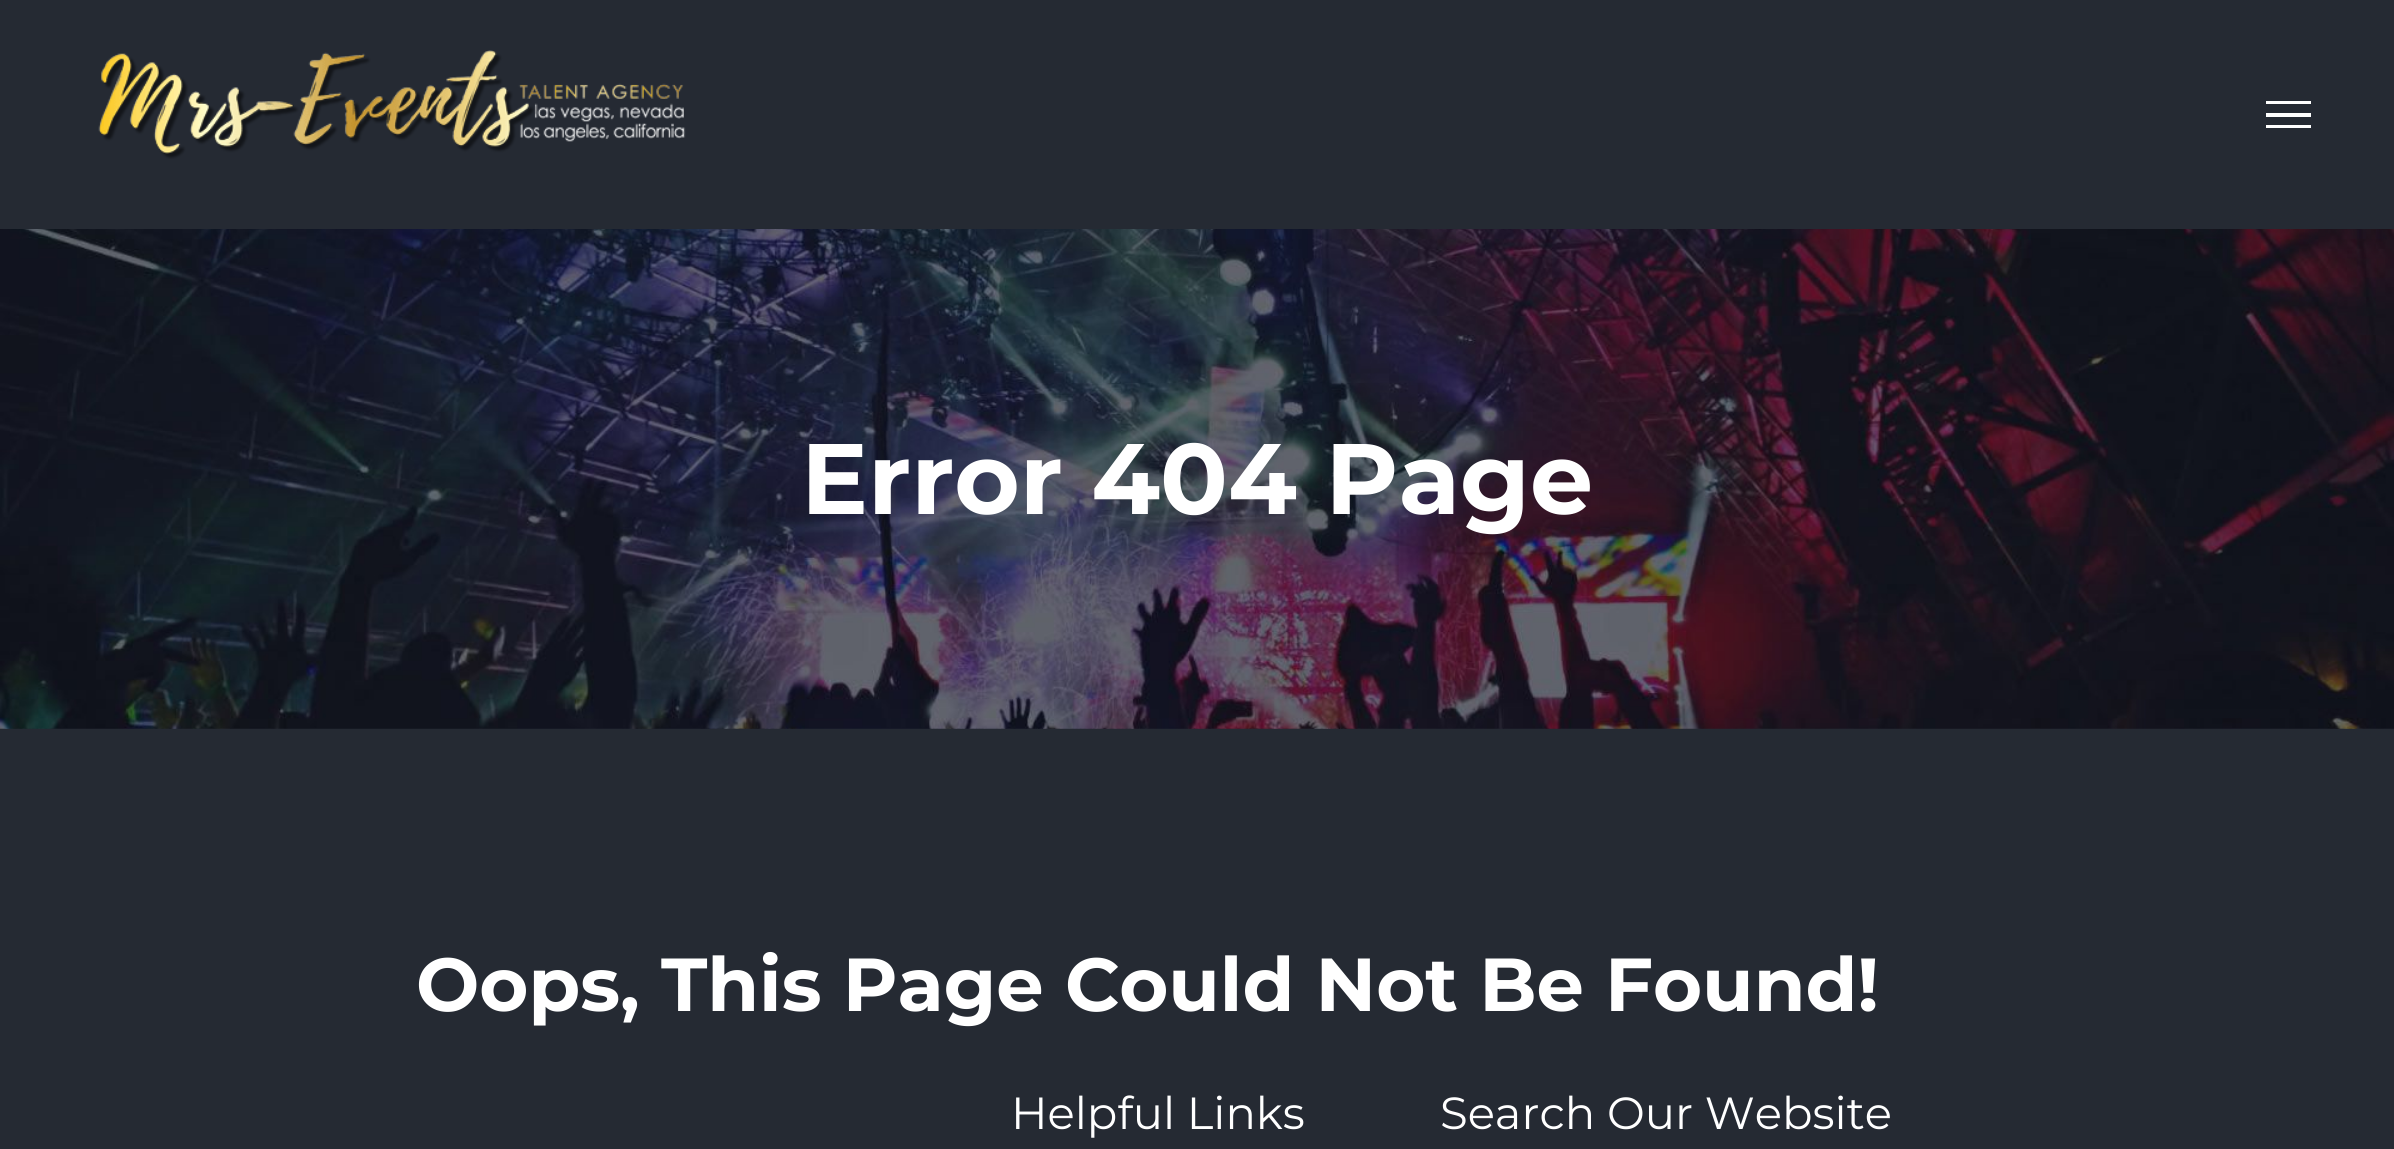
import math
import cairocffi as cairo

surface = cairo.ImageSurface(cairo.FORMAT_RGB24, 2394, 1149)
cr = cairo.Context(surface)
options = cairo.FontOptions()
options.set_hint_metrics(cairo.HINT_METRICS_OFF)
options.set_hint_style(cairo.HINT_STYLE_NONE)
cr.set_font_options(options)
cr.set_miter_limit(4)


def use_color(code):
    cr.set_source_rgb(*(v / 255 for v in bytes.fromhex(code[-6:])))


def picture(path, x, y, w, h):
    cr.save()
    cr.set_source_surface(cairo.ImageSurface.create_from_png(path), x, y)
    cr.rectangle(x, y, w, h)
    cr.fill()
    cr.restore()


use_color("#252a33")
cr.paint()
picture("img1.png", 98, 50, 588, 109)
use_color("#ffffff")
cr.rectangle(2266, 101, 45, 3)
cr.fill()
cr.rectangle(2266, 113, 45, 4)
cr.fill()
cr.rectangle(2266, 125, 45, 3)
cr.fill()
picture("img2.png", 0, 229, 2394, 500)
cr.select_font_face("Montserrat", cairo.FONT_SLANT_NORMAL, cairo.FONT_WEIGHT_BOLD)
cr.set_font_size(100)
cr.move_to(801, 514)
cr.show_text("Error 404 Page")
cr.set_font_size(75)
cr.move_to(416, 1011)
cr.show_text("Oops, This Page Could Not Be Found!")
cr.select_font_face("Montserrat")
cr.set_font_size(45)
cr.move_to(1011, 1129)
cr.show_text("Helpful Links")
cr.move_to(1440, 1129)
cr.show_text("Search Our Website")
surface.write_to_png("result.png")
